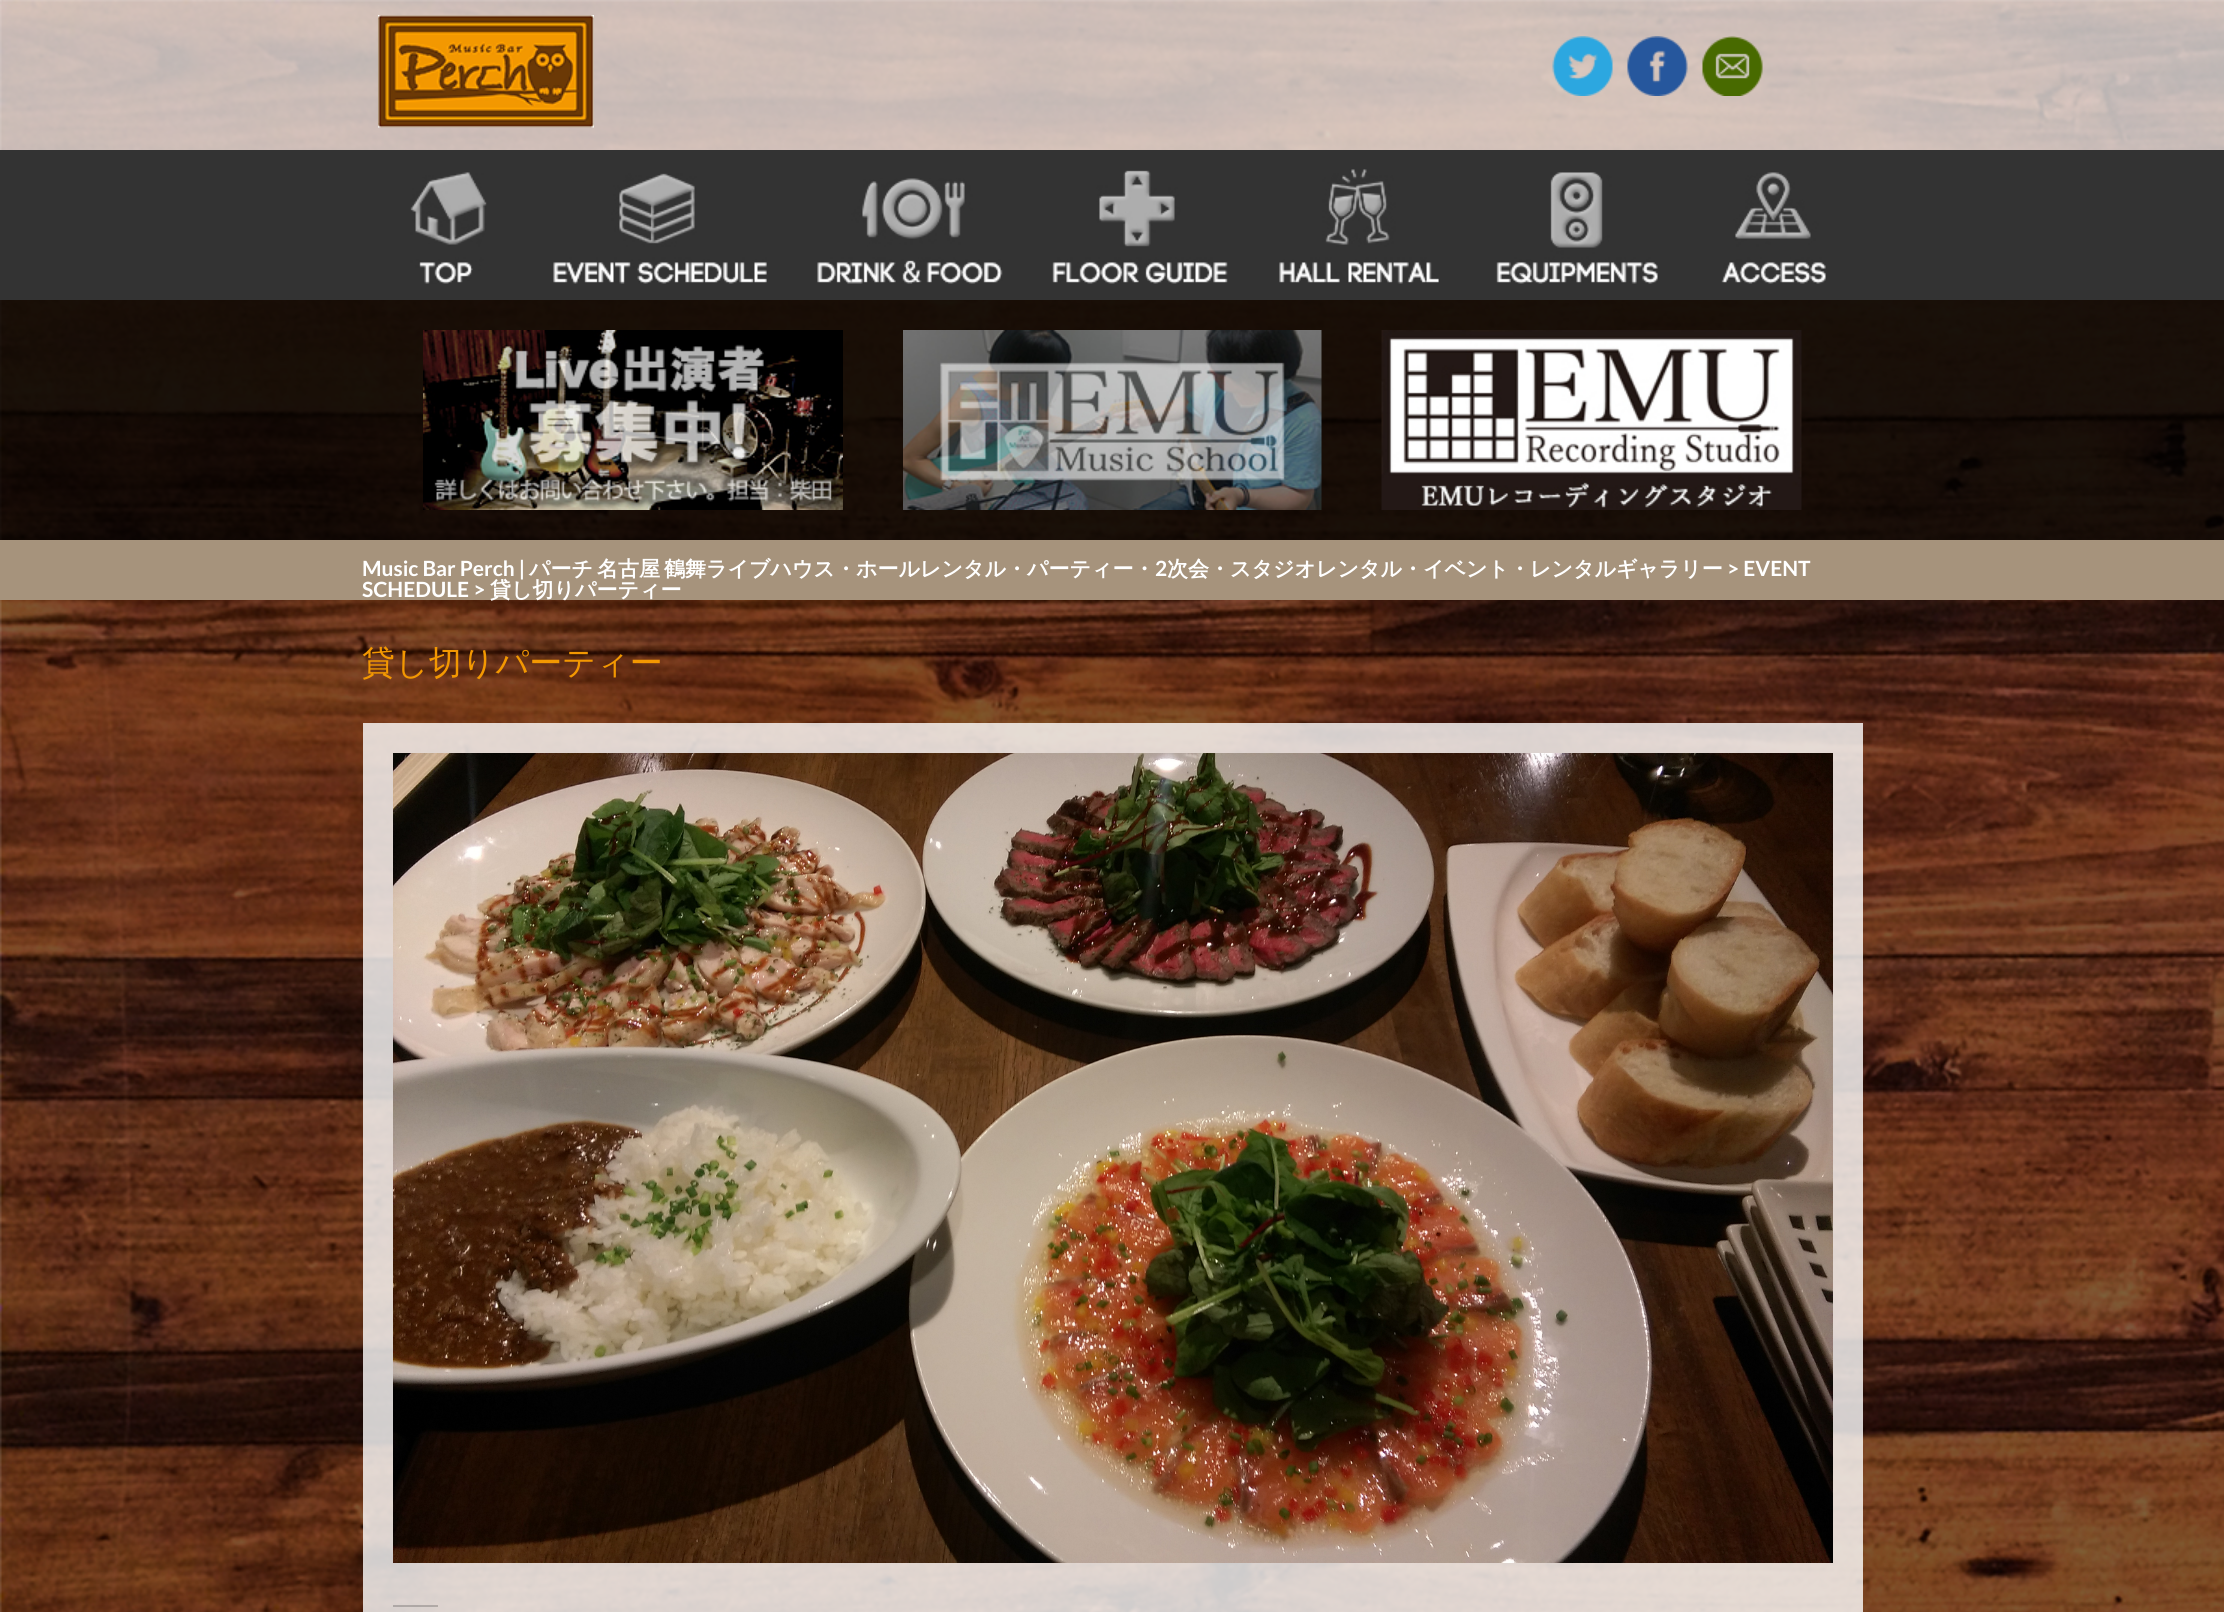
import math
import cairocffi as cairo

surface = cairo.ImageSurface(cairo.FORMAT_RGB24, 2224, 1612)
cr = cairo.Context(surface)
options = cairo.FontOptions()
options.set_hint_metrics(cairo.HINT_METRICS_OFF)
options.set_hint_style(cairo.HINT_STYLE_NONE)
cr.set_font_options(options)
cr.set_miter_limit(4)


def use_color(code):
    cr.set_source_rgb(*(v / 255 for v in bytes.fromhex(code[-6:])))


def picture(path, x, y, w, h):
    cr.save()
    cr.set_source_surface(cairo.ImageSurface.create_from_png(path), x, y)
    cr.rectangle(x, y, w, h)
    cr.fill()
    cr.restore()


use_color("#ffffff")
cr.paint()
picture("img1.png", 0, 0, 2224, 1612)
cr.set_source_rgba(1, 1, 1, 0.7)
cr.rectangle(0, 0, 2224, 150)
cr.fill()
picture("img2.png", 378, 15, 216, 113)
picture("img3.png", 1552, 36, 61, 60)
picture("img4.png", 1627, 36, 61, 60)
picture("img5.png", 1702, 36, 61, 60)
use_color("#333333")
cr.rectangle(0, 150, 2224, 150)
cr.fill()
picture("img6.png", 410, 172, 77, 112)
picture("img7.png", 553, 173, 214, 111)
picture("img8.png", 817, 178, 186, 106)
picture("img9.png", 1052, 170, 176, 114)
picture("img10.png", 1279, 169, 160, 115)
picture("img11.png", 1496, 172, 162, 112)
picture("img12.png", 1721, 172, 105, 112)
cr.set_source_rgba(0, 0, 0, 0.8)
cr.rectangle(0, 300, 2224, 240)
cr.fill()
picture("img13.png", 423, 330, 420, 180)
picture("img14.png", 903, 330, 419, 180)
picture("img15.png", 1381, 330, 421, 180)
use_color("#a6937c")
cr.rectangle(0, 540, 2224, 60)
cr.fill()
cr.select_font_face("Lato", cairo.FONT_SLANT_NORMAL, cairo.FONT_WEIGHT_BOLD)
cr.set_font_size(21)
use_color("#ffffff")
cr.move_to(362, 576)
cr.show_text("Music Bar Perch |")
cr.select_font_face("WenQuanYi Zen Hei", cairo.FONT_SLANT_NORMAL, cairo.FONT_WEIGHT_BOLD)
cr.move_to(529, 576)
cr.show_text("パーチ")
cr.move_to(597, 576)
cr.show_text("名古屋")
cr.move_to(664, 576)
cr.show_text("鶴舞ライブハウス・ホールレンタル・パーティー・")
cr.select_font_face("Lato", cairo.FONT_SLANT_NORMAL, cairo.FONT_WEIGHT_BOLD)
cr.move_to(1155, 576)
cr.show_text("2")
cr.select_font_face("WenQuanYi Zen Hei", cairo.FONT_SLANT_NORMAL, cairo.FONT_WEIGHT_BOLD)
cr.move_to(1167, 576)
cr.show_text("次会・スタジオレンタル・イベント・レンタルギャラリー")
cr.select_font_face("Lato", cairo.FONT_SLANT_NORMAL, cairo.FONT_WEIGHT_BOLD)
cr.move_to(1727, 576)
cr.show_text("> EVENT")
cr.move_to(362, 597)
cr.show_text("SCHEDULE >")
cr.select_font_face("WenQuanYi Zen Hei", cairo.FONT_SLANT_NORMAL, cairo.FONT_WEIGHT_BOLD)
cr.move_to(490, 597)
cr.show_text("貸し切りパーティー")
cr.select_font_face("WenQuanYi Zen Hei Medium")
cr.set_font_size(33)
use_color("#f39801")
cr.move_to(362, 674)
cr.show_text("貸し切りパーティー")
cr.set_source_rgba(1, 1, 1, 0.8)
cr.rectangle(363, 723, 1500, 889)
cr.fill()
picture("img16.png", 393, 753, 1440, 810)
cr.set_source_rgba(0, 0, 0, 0.2)
cr.rectangle(393, 1605, 45, 2)
cr.fill()
surface.write_to_png("result.png")
